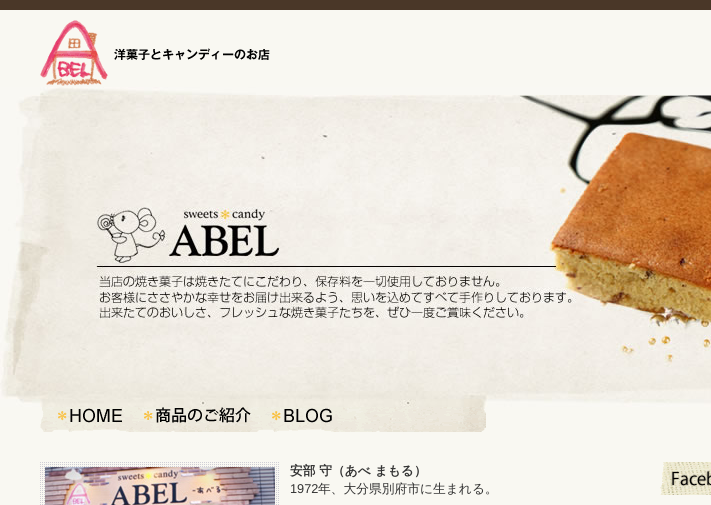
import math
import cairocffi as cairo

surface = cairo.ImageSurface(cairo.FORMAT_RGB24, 711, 505)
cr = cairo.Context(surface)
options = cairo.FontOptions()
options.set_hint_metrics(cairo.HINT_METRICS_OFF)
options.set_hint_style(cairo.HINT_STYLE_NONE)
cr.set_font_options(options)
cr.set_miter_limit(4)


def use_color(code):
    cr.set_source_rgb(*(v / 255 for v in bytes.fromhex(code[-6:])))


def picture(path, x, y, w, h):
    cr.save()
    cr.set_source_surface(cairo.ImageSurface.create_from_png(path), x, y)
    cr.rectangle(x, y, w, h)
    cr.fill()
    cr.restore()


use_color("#f9f8f2")
cr.paint()
use_color("#4a3728")
cr.rectangle(0, 0, 711, 10)
cr.fill()
picture("img1.png", 40, 20, 230, 66)
picture("img2.png", 0, 87, 711, 320)
picture("img3.png", 40, 407, 446, 25)
picture("img4.png", 58, 408, 64, 15)
picture("img5.png", 144, 407, 107, 16)
picture("img6.png", 272, 408, 60, 15)
picture("img7.png", 40, 462, 239, 43)
cr.select_font_face("WenQuanYi Zen Hei", cairo.FONT_SLANT_NORMAL, cairo.FONT_WEIGHT_BOLD)
cr.set_font_size(12.75)
use_color("#333333")
cr.move_to(290, 475)
cr.show_text("安部 守（あべ まもる）")
cr.select_font_face("Liberation Sans")
cr.move_to(290, 493)
cr.show_text("1972")
cr.select_font_face("WenQuanYi Zen Hei Medium")
cr.move_to(318, 493)
cr.show_text("年、大分県別府市に生まれる。")
picture("img8.png", 660, 462, 51, 33)
surface.write_to_png("result.png")
